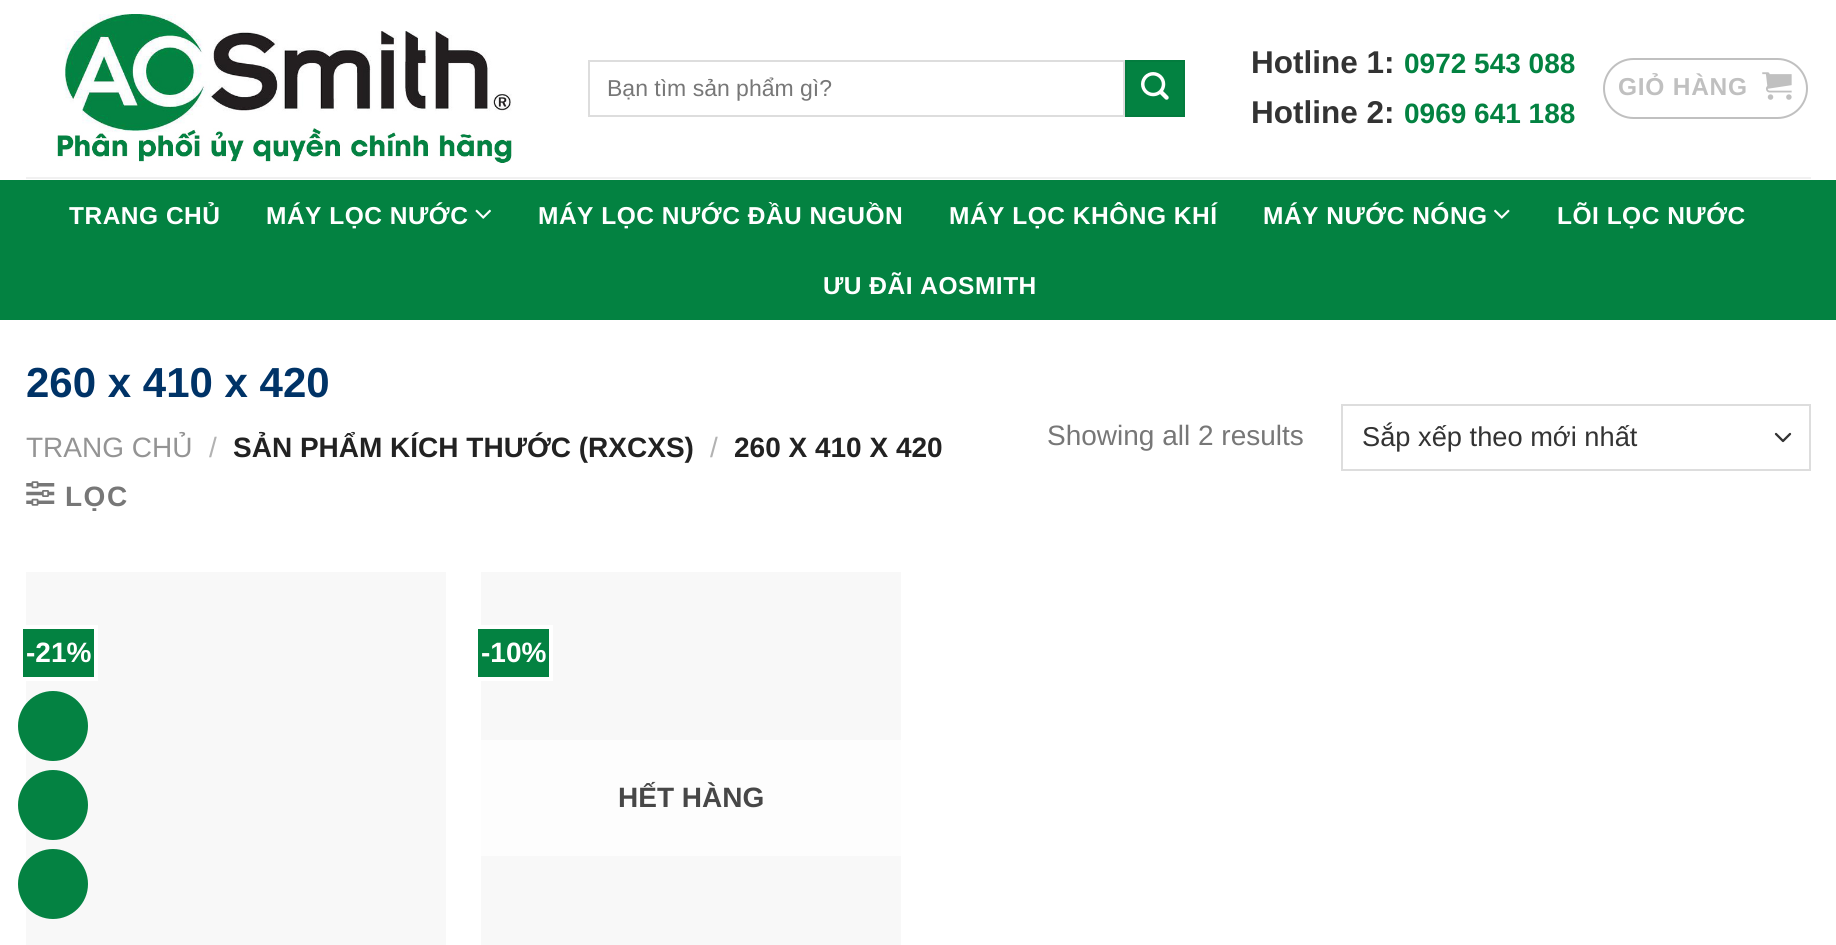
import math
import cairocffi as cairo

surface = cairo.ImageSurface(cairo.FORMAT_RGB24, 1836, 945)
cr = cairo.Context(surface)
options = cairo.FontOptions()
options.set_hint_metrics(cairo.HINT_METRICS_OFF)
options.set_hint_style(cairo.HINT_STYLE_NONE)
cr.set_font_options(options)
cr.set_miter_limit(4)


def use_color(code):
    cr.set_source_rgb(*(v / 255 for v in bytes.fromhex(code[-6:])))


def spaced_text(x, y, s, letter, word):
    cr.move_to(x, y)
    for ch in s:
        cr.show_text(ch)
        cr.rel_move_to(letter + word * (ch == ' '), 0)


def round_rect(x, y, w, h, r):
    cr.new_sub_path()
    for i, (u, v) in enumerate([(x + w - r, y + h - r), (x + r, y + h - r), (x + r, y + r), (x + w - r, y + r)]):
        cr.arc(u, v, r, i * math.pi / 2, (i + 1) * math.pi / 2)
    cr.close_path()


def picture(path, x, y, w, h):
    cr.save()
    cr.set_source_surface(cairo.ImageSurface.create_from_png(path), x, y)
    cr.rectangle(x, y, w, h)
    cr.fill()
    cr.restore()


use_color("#ffffff")
cr.paint()
picture("img1.png", 57, 14, 455, 149)
cr.rectangle(589, 61, 535, 55)
use_color("#dddddd")
cr.stroke()
cr.select_font_face("Liberation Sans")
cr.set_font_size(23)
use_color("#777777")
cr.move_to(607, 96)
cr.show_text("Bạn tìm sản phẩm gì?")
use_color("#038241")
cr.rectangle(1126, 61, 58, 55)
cr.fill_preserve()
use_color("#037c3e")
cr.stroke()
picture("img2.png", 1141, 72, 28, 28)
cr.select_font_face("Liberation Sans", cairo.FONT_SLANT_NORMAL, cairo.FONT_WEIGHT_BOLD)
cr.set_font_size(31.5)
use_color("#333333")
cr.move_to(1251, 73)
cr.show_text("Hotline 1:")
cr.set_font_size(28)
use_color("#038241")
cr.move_to(1404, 73)
cr.show_text("0972 543 088")
cr.set_font_size(31.5)
use_color("#333333")
cr.move_to(1251, 123)
cr.show_text("Hotline 2:")
cr.set_font_size(28)
use_color("#038241")
cr.move_to(1404, 123)
cr.show_text("0969 641 188")
round_rect(1604, 59, 203, 59, 29.5)
use_color("#c0c0c0")
cr.stroke()
cr.set_font_size(24.5)
spaced_text(1618, 95, "GIỎ HÀNG", 0.75, 0)
picture("img3.png", 1762, 72, 30, 28)
use_color("#f1f1f1")
cr.rectangle(26, 177, 1785, 2)
cr.fill()
use_color("#038241")
cr.rectangle(0, 180, 1836, 140)
cr.fill()
use_color("#ffffff")
spaced_text(69, 224, "TRANG CHỦ", 0.5, 0)
spaced_text(266, 224, "MÁY LỌC NƯỚC", 0.5, 0)
picture("img4.png", 475, 209, 16, 10)
spaced_text(538, 224, "MÁY LỌC NƯỚC ĐẦU NGUỒN", 0.5, 0)
spaced_text(949, 224, "MÁY LỌC KHÔNG KHÍ", 0.5, 0)
spaced_text(1263, 224, "MÁY NƯỚC NÓNG", 0.5, 0)
picture("img5.png", 1494, 209, 16, 10)
spaced_text(1557, 224, "LÕI LỌC NƯỚC", 0.5, 0)
spaced_text(823, 294, "ƯU ĐÃI AOSMITH", 0.5, 0)
cr.set_font_size(42)
use_color("#003367")
cr.move_to(26, 397)
cr.show_text("260 x 410 x 420")
cr.select_font_face("Liberation Sans")
cr.set_font_size(28)
use_color("#949494")
cr.move_to(26, 457)
cr.show_text("TRANG CHỦ")
use_color("#b2b2b2")
cr.move_to(209, 457)
cr.show_text("/")
cr.select_font_face("Liberation Sans", cairo.FONT_SLANT_NORMAL, cairo.FONT_WEIGHT_BOLD)
use_color("#222222")
cr.move_to(233, 457)
cr.show_text("SẢN PHẨM KÍCH THƯỚC (RXCXS)")
cr.select_font_face("Liberation Sans")
use_color("#b2b2b2")
cr.move_to(710, 457)
cr.show_text("/")
cr.select_font_face("Liberation Sans", cairo.FONT_SLANT_NORMAL, cairo.FONT_WEIGHT_BOLD)
use_color("#222222")
cr.move_to(734, 457)
cr.show_text("260 X 410 X 420")
picture("img6.png", 26, 481, 29, 25)
use_color("#777777")
spaced_text(65, 506, "LỌC", 1.5, 0)
cr.select_font_face("Liberation Sans")
cr.move_to(1047, 445)
cr.show_text("Showing all 2 results")
cr.new_path()
cr.move_to(1776, 434)
cr.line_to(1783, 441)
cr.line_to(1790, 434)
use_color("#333333")
cr.set_line_width(2.3)
cr.set_line_cap(cairo.LINE_CAP_ROUND)
cr.set_line_join(cairo.LINE_JOIN_ROUND)
cr.stroke()
cr.rectangle(1342, 405, 468, 65)
use_color("#dddddd")
cr.set_line_width(2)
cr.set_line_cap(cairo.LINE_CAP_BUTT)
cr.set_line_join(cairo.LINE_JOIN_MITER)
cr.stroke()
cr.set_font_size(27.25)
use_color("#333333")
cr.move_to(1362, 446)
cr.show_text("Sắp xếp theo mới nhất")
use_color("#f8f8f8")
cr.rectangle(26, 572, 420, 373)
cr.fill()
use_color("#038241")
cr.rectangle(21, 627, 75, 52)
cr.fill_preserve()
use_color("#ffffff")
cr.set_line_width(4)
cr.stroke()
cr.select_font_face("Liberation Sans", cairo.FONT_SLANT_NORMAL, cairo.FONT_WEIGHT_BOLD)
cr.set_font_size(28)
cr.move_to(26, 662)
cr.show_text("-21%")
use_color("#f8f8f8")
cr.rectangle(481, 572, 420, 373)
cr.fill()
use_color("#038241")
cr.rectangle(476, 627, 75, 52)
cr.fill_preserve()
use_color("#ffffff")
cr.stroke()
cr.move_to(481, 662)
cr.show_text("-10%")
use_color("#fdfdfd")
cr.rectangle(481, 740, 420, 116)
cr.fill()
use_color("#474747")
cr.move_to(618, 807)
cr.show_text("HẾT HÀNG")
use_color("#048242")
cr.new_path()
cr.arc(53, 726, 35, 0, 2 * math.pi)
cr.fill()
cr.arc(53, 805, 35, 0, 2 * math.pi)
cr.fill()
cr.arc(53, 884, 35, 0, 2 * math.pi)
cr.fill()
surface.write_to_png("result.png")
